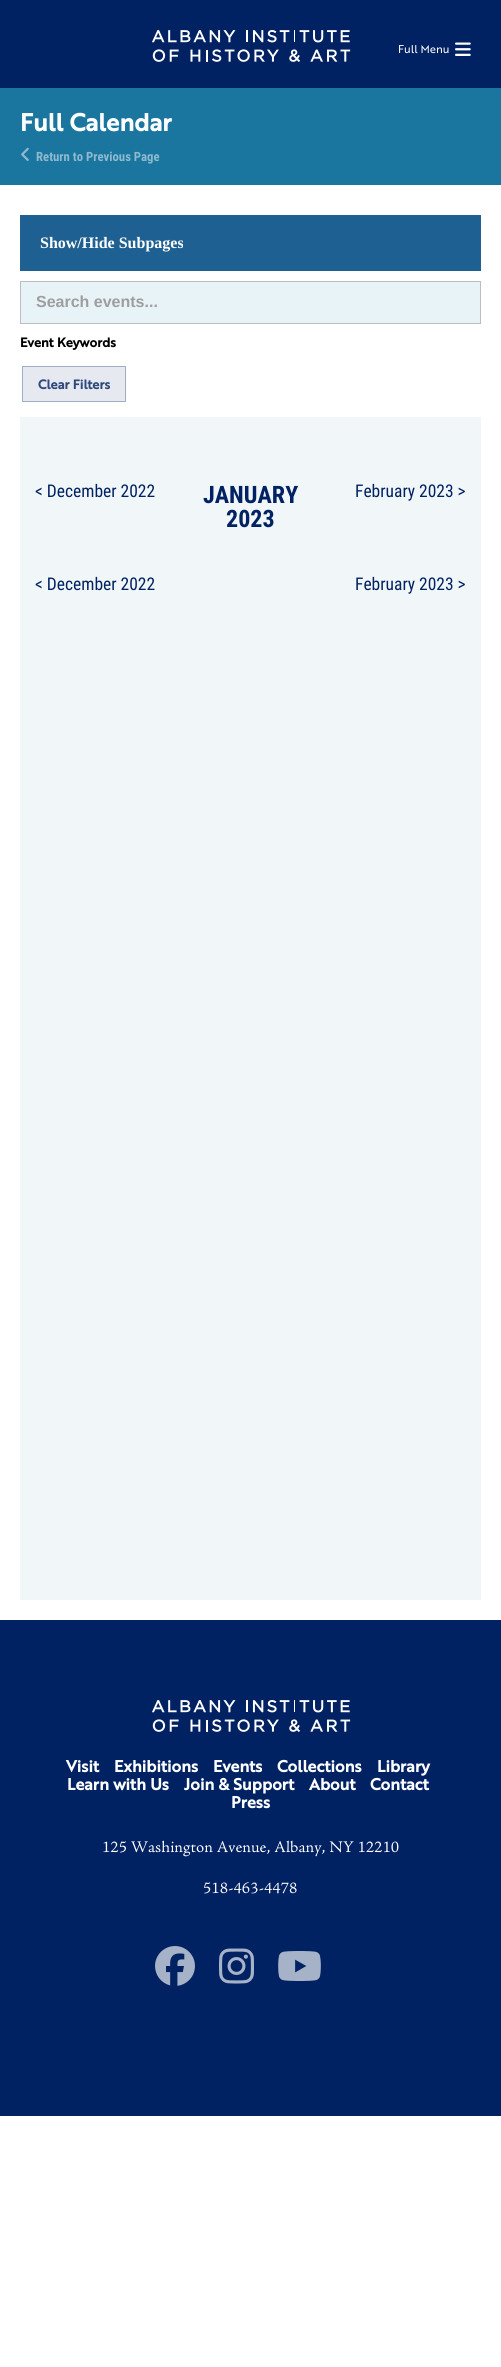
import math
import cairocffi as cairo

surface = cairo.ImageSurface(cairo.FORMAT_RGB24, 501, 2367)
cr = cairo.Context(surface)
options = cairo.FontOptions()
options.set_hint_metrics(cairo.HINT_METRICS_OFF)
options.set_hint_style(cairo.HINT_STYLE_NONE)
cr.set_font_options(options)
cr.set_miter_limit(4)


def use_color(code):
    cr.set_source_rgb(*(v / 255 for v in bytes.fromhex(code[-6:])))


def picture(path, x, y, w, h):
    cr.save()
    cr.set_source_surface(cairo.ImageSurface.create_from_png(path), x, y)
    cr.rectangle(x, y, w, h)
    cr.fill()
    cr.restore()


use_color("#ffffff")
cr.paint()
use_color("#002162")
cr.rectangle(0, 0, 501, 88)
cr.fill()
picture("img1.png", 152, 30, 199, 32)
cr.select_font_face("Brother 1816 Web")
cr.set_font_size(11)
use_color("#ffffff")
cr.move_to(398, 53)
cr.show_text("Full Menu")
picture("img2.png", 455, 42, 16, 14)
use_color("#1a759f")
cr.rectangle(0, 88, 501, 97)
cr.fill()
cr.select_font_face("Brother 1816 Web", cairo.FONT_SLANT_NORMAL, cairo.FONT_WEIGHT_BOLD)
cr.set_font_size(24)
use_color("#ffffff")
cr.move_to(20, 131)
cr.show_text("Full Calendar")
picture("img3.png", 21, 147, 8, 14)
cr.select_font_face("Roboto Condensed", cairo.FONT_SLANT_NORMAL, cairo.FONT_WEIGHT_BOLD)
cr.set_font_size(12.75)
use_color("#8dbacf")
cr.move_to(36, 161)
cr.show_text("Return to Previous Page")
use_color("#1e6091")
cr.rectangle(20, 215, 461, 56)
cr.fill()
cr.select_font_face("Liberation Serif", cairo.FONT_SLANT_NORMAL, cairo.FONT_WEIGHT_BOLD)
cr.set_font_size(16)
use_color("#ffffff")
cr.move_to(40, 248)
cr.show_text("Show/Hide Subpages")
use_color("#e8f3f7")
cr.rectangle(20.5, 281.5, 460, 42)
cr.fill_preserve()
use_color("#bdbdbd")
cr.set_line_width(1)
cr.stroke()
cr.select_font_face("Liberation Sans", cairo.FONT_SLANT_NORMAL, cairo.FONT_WEIGHT_BOLD)
use_color("#9e9e9e")
cr.move_to(36, 307)
cr.show_text("Search events...")
cr.select_font_face("Brother 1816 Web", cairo.FONT_SLANT_NORMAL, cairo.FONT_WEIGHT_BOLD)
cr.set_font_size(12.75)
use_color("#000000")
cr.move_to(20, 347)
cr.show_text("Event Keywords")
use_color("#e6e9ef")
cr.rectangle(22.5, 366.5, 103, 35)
cr.fill_preserve()
use_color("#a1adc5")
cr.stroke()
use_color("#2e497e")
cr.move_to(38, 389)
cr.show_text("Clear Filters")
use_color("#f1f6f8")
cr.rectangle(20, 417, 461, 1183)
cr.fill()
cr.select_font_face("Roboto Condensed")
cr.set_font_size(17.5)
use_color("#002162")
cr.move_to(35, 497)
cr.show_text("< December 2022")
cr.select_font_face("Roboto Condensed", cairo.FONT_SLANT_NORMAL, cairo.FONT_WEIGHT_BOLD)
cr.set_font_size(24)
cr.move_to(203, 503)
cr.show_text("JANUARY")
cr.move_to(226, 527)
cr.show_text("2023")
cr.select_font_face("Roboto Condensed")
cr.set_font_size(17.5)
cr.move_to(355, 497)
cr.show_text("February 2023 >")
cr.move_to(35, 590)
cr.show_text("< December 2022")
cr.move_to(355, 590)
cr.show_text("February 2023 >")
cr.rectangle(0, 1620, 501, 496)
cr.fill()
picture("img1.png", 152, 1700, 199, 32)
cr.select_font_face("Brother 1816 Web", cairo.FONT_SLANT_NORMAL, cairo.FONT_WEIGHT_BOLD)
cr.set_font_size(16)
use_color("#ffffff")
cr.move_to(66, 1772)
cr.show_text("Visit")
cr.move_to(114, 1772)
cr.show_text("Exhibitions")
cr.move_to(213, 1772)
cr.show_text("Events")
cr.move_to(277, 1772)
cr.show_text("Collections")
cr.move_to(377, 1772)
cr.show_text("Library")
cr.move_to(67, 1790)
cr.show_text("Learn with Us")
cr.move_to(184, 1790)
cr.show_text("Join & Support")
cr.move_to(309, 1790)
cr.show_text("About")
cr.move_to(370, 1790)
cr.show_text("Contact")
cr.move_to(231, 1808)
cr.show_text("Press")
cr.select_font_face("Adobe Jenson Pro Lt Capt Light")
cr.move_to(102, 1852)
cr.show_text("125 Washington Avenue, Albany, NY 12210")
cr.move_to(203, 1893)
cr.show_text("518-463-4478")
picture("img4.png", 155, 1946, 40, 40)
picture("img5.png", 219, 1948, 35, 36)
picture("img6.png", 278, 1951, 43, 30)
surface.write_to_png("result.png")
